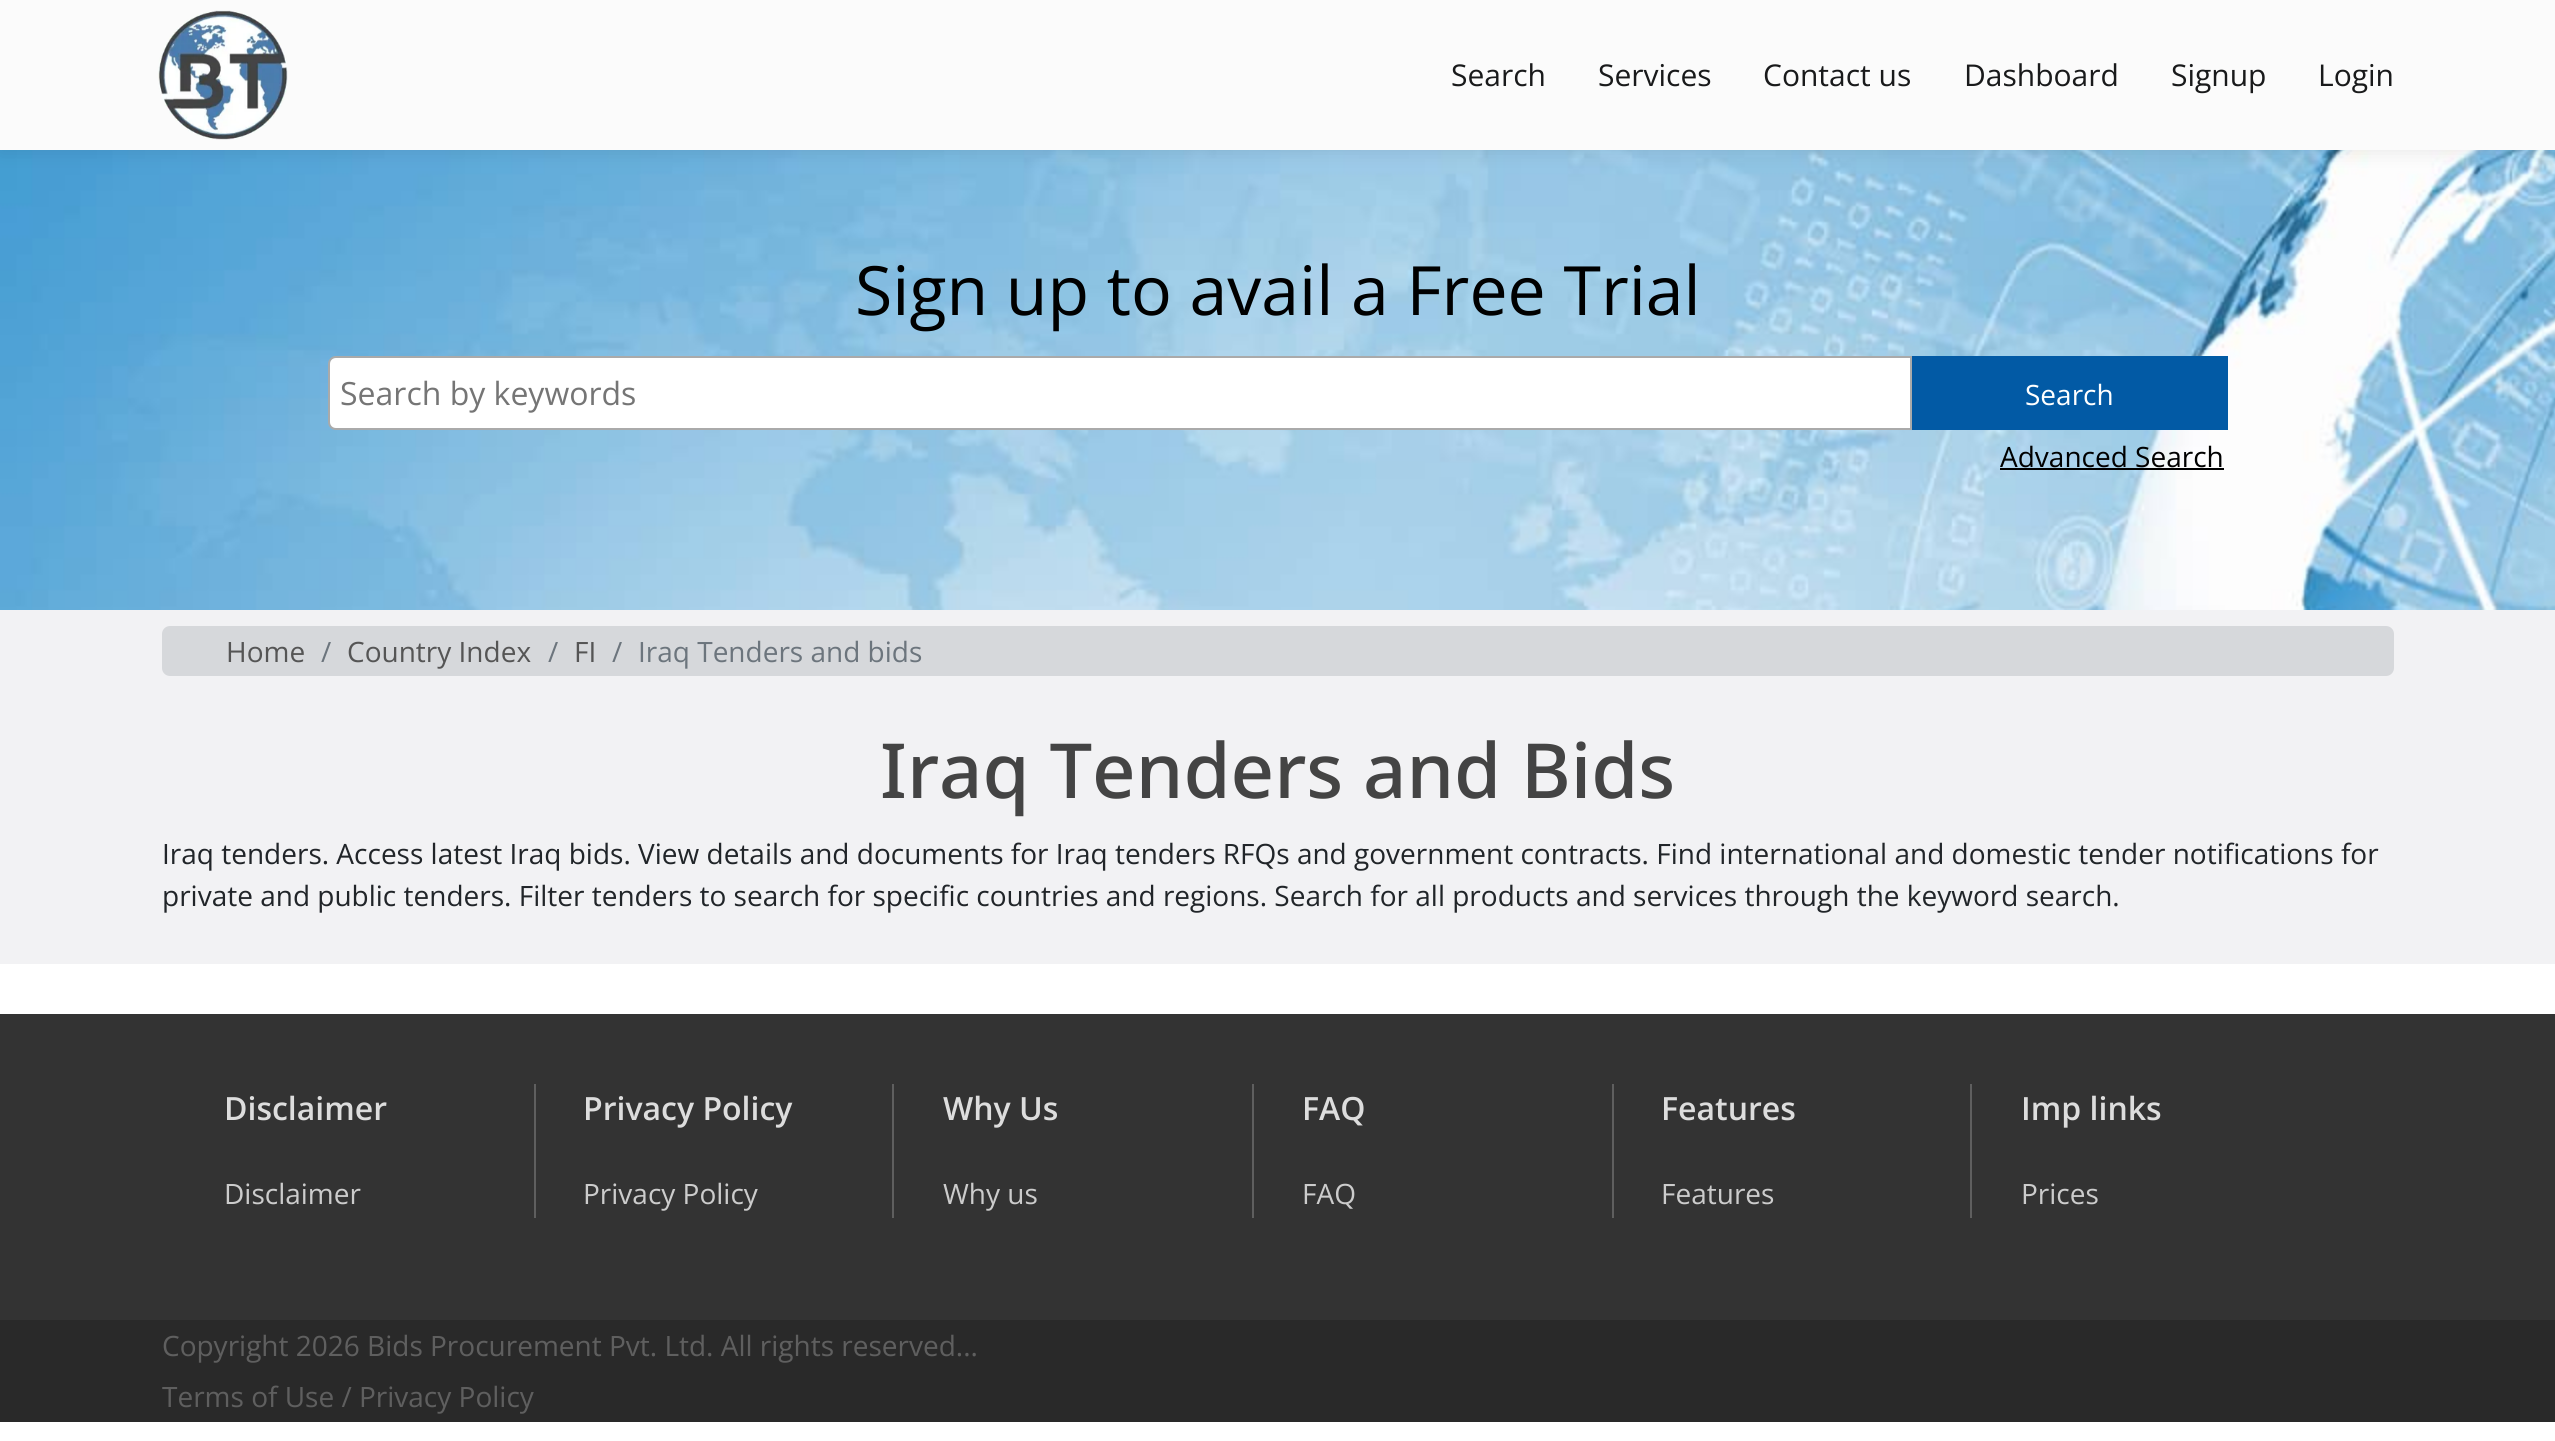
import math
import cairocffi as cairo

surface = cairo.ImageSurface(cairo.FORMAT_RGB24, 2555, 1441)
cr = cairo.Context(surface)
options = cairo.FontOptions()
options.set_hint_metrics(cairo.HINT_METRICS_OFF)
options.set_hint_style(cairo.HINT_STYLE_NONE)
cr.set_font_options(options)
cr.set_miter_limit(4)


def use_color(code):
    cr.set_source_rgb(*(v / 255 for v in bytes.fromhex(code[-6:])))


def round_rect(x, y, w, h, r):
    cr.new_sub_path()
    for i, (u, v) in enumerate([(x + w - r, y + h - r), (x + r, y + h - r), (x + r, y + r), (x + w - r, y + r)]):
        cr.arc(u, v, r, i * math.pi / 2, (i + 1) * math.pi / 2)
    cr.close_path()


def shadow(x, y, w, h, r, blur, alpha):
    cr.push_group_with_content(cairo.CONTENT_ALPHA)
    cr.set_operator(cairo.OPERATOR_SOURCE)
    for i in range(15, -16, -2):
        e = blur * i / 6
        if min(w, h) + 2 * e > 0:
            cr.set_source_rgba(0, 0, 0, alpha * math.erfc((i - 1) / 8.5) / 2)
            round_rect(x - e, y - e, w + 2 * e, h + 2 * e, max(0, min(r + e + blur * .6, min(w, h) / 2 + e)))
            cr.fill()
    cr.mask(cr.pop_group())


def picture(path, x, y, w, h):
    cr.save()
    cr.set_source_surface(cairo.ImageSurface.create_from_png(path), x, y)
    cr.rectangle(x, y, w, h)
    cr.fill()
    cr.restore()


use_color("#ffffff")
cr.paint()
picture("img2.png", 0, 150, 2555, 460)
use_color("#000000")
shadow(0, 0, 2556, 150, 0, 10, 0.1)
use_color("#fbfbfb")
cr.rectangle(0, 0, 2555, 150)
cr.fill()
picture("img1.png", 158, 10, 130, 130)
cr.select_font_face("Open Sans")
cr.set_font_size(30)
use_color("#191a1b")
cr.move_to(1451, 86)
cr.show_text("Search")
cr.move_to(1598, 86)
cr.show_text("Services")
cr.move_to(1763, 86)
cr.show_text("Contact us")
cr.move_to(1964, 86)
cr.show_text("Dashboard")
cr.move_to(2171, 86)
cr.show_text("Signup")
cr.move_to(2318, 86)
cr.show_text("Login")
cr.set_font_size(68)
use_color("#000000")
cr.move_to(855, 315)
cr.show_text("Sign up to avail a Free Trial")
use_color("#ffffff")
cr.new_path()
cr.move_to(336, 357)
cr.line_to(1911, 357)
cr.line_to(1911, 429)
cr.line_to(336, 429)
cr.curve_to(332, 429, 329, 426, 329, 422)
cr.line_to(329, 364)
cr.curve_to(329, 360, 332, 357, 336, 357)
cr.close_path()
cr.fill_preserve()
use_color("#aaaaaa")
cr.stroke()
cr.set_font_size(32)
use_color("#757575")
cr.move_to(340, 405)
cr.show_text("Search by keywords")
use_color("#025aa5")
cr.rectangle(1912, 356, 316, 74)
cr.fill()
cr.set_font_size(28)
use_color("#ffffff")
cr.move_to(2025, 405)
cr.show_text("Search")
use_color("#000000")
cr.move_to(2000, 467)
cr.show_text("Advanced Search")
cr.rectangle(2000, 468, 224, 2)
cr.fill()
use_color("#f2f2f4")
cr.rectangle(0, 610, 2555, 354)
cr.fill()
use_color("#d6d8db")
round_rect(162, 626, 2232, 50, 8)
cr.fill()
use_color("#555555")
cr.move_to(226, 662)
cr.show_text("Home")
use_color("#6c757d")
cr.move_to(321, 662)
cr.show_text("/")
use_color("#555555")
cr.move_to(347, 662)
cr.show_text("Country Index")
use_color("#6c757d")
cr.move_to(548, 662)
cr.show_text("/")
use_color("#555555")
cr.move_to(574, 662)
cr.show_text("FI")
use_color("#6c757d")
cr.move_to(612, 662)
cr.show_text("/")
cr.move_to(638, 662)
cr.show_text("Iraq Tenders and bids")
cr.select_font_face("Noto Sans Medium")
cr.set_font_size(76)
use_color("#444444")
cr.move_to(880, 798)
cr.show_text("Iraq Tenders and Bids")
cr.select_font_face("Open Sans")
cr.set_font_size(28)
use_color("#212529")
cr.move_to(162, 864)
cr.show_text("Iraq tenders. Access latest Iraq bids. View details and documents for Iraq tenders RFQs and government contracts. Find international and domestic tender notifications for")
cr.move_to(162, 906)
cr.show_text("private and public tenders. Filter tenders to search for specific countries and regions. Search for all products and services through the keyword search.")
use_color("#333333")
cr.rectangle(0, 1014, 2555, 306)
cr.fill()
use_color("#5f5f5f")
cr.rectangle(534, 1084, 2, 134)
cr.fill()
cr.select_font_face("Open Sans SemiBold")
cr.set_font_size(32)
use_color("#dddddd")
cr.move_to(224, 1120)
cr.show_text("Disclaimer")
cr.select_font_face("Open Sans")
cr.set_font_size(28)
use_color("#cccccc")
cr.move_to(224, 1204)
cr.show_text("Disclaimer")
use_color("#5f5f5f")
cr.rectangle(892, 1084, 2, 134)
cr.fill()
cr.select_font_face("Open Sans SemiBold")
cr.set_font_size(32)
use_color("#dddddd")
cr.move_to(583, 1120)
cr.show_text("Privacy Policy")
cr.select_font_face("Open Sans")
cr.set_font_size(28)
use_color("#cccccc")
cr.move_to(583, 1204)
cr.show_text("Privacy Policy")
use_color("#5f5f5f")
cr.rectangle(1252, 1084, 2, 134)
cr.fill()
cr.select_font_face("Open Sans SemiBold")
cr.set_font_size(32)
use_color("#dddddd")
cr.move_to(943, 1120)
cr.show_text("Why Us")
cr.select_font_face("Open Sans")
cr.set_font_size(28)
use_color("#cccccc")
cr.move_to(943, 1204)
cr.show_text("Why us")
use_color("#5f5f5f")
cr.rectangle(1612, 1084, 2, 134)
cr.fill()
cr.select_font_face("Open Sans SemiBold")
cr.set_font_size(32)
use_color("#dddddd")
cr.move_to(1302, 1120)
cr.show_text("FAQ")
cr.select_font_face("Open Sans")
cr.set_font_size(28)
use_color("#cccccc")
cr.move_to(1302, 1204)
cr.show_text("FAQ")
use_color("#5f5f5f")
cr.rectangle(1970, 1084, 2, 134)
cr.fill()
cr.select_font_face("Open Sans SemiBold")
cr.set_font_size(32)
use_color("#dddddd")
cr.move_to(1661, 1120)
cr.show_text("Features")
cr.select_font_face("Open Sans")
cr.set_font_size(28)
use_color("#cccccc")
cr.move_to(1661, 1204)
cr.show_text("Features")
cr.select_font_face("Open Sans SemiBold")
cr.set_font_size(32)
use_color("#dddddd")
cr.move_to(2021, 1120)
cr.show_text("Imp links")
cr.select_font_face("Open Sans")
cr.set_font_size(28)
use_color("#cccccc")
cr.move_to(2021, 1204)
cr.show_text("Prices")
use_color("#292929")
cr.rectangle(0, 1320, 2555, 102)
cr.fill()
use_color("#5f5f5f")
cr.move_to(162, 1356)
cr.show_text("Copyright 2026 Bids Procurement Pvt. Ltd. All rights reserved...")
cr.move_to(162, 1407)
cr.show_text("Terms of Use / Privacy Policy")
surface.write_to_png("result.png")
